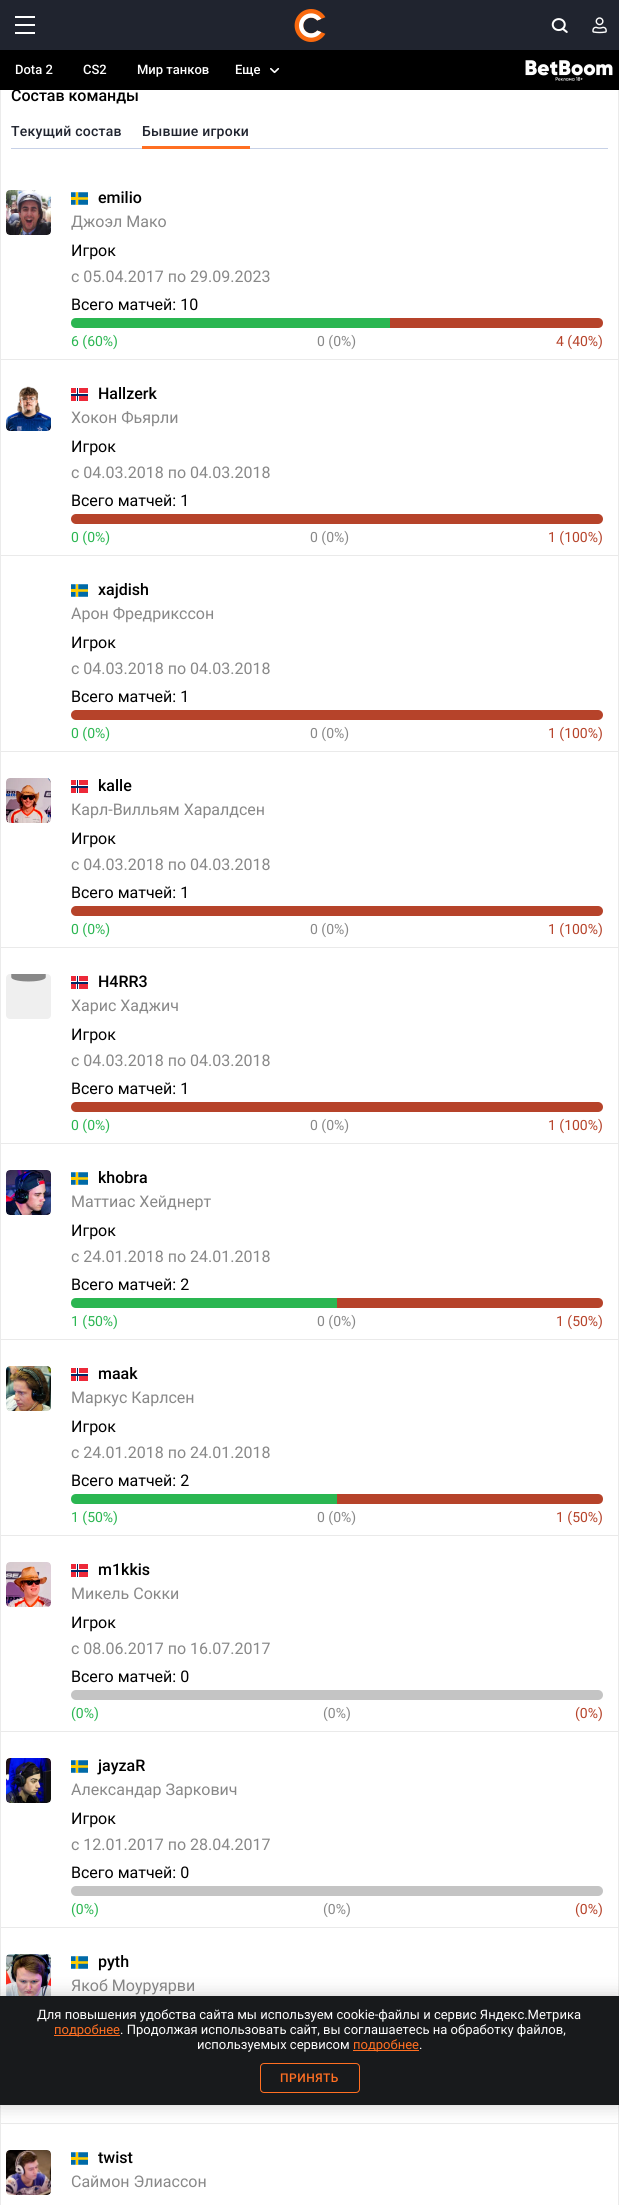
import math
import cairocffi as cairo

surface = cairo.ImageSurface(cairo.FORMAT_RGB24, 619, 2205)
cr = cairo.Context(surface)
options = cairo.FontOptions()
options.set_hint_metrics(cairo.HINT_METRICS_OFF)
options.set_hint_style(cairo.HINT_STYLE_NONE)
cr.set_font_options(options)
cr.set_miter_limit(4)


def use_color(code):
    cr.set_source_rgb(*(v / 255 for v in bytes.fromhex(code[-6:])))


def spaced_text(x, y, s, letter, word):
    cr.move_to(x, y)
    for ch in s:
        cr.show_text(ch)
        cr.rel_move_to(letter + word * (ch == ' '), 0)


def round_rect(x, y, w, h, r):
    cr.new_sub_path()
    for i, (u, v) in enumerate([(x + w - r, y + h - r), (x + r, y + h - r), (x + r, y + r), (x + w - r, y + r)]):
        cr.arc(u, v, r, i * math.pi / 2, (i + 1) * math.pi / 2)
    cr.close_path()


def shadow(x, y, w, h, r, blur, alpha):
    cr.push_group_with_content(cairo.CONTENT_ALPHA)
    cr.set_operator(cairo.OPERATOR_SOURCE)
    for i in range(15, -16, -2):
        e = blur * i / 6
        if min(w, h) + 2 * e > 0:
            cr.set_source_rgba(0, 0, 0, alpha * math.erfc((i - 1) / 8.5) / 2)
            round_rect(x - e, y - e, w + 2 * e, h + 2 * e, max(0, min(r + e + blur * .6, min(w, h) / 2 + e)))
            cr.fill()
    cr.mask(cr.pop_group())


def picture(path, x, y, w, h):
    cr.save()
    cr.set_source_surface(cairo.ImageSurface.create_from_png(path), x, y)
    cr.rectangle(x, y, w, h)
    cr.fill()
    cr.restore()


use_color("#ffffff")
cr.paint()
use_color("#20242f")
cr.rectangle(0, 0, 619, 50)
cr.fill()
use_color("#ffffff")
cr.rectangle(15, 16, 20, 2)
cr.fill()
cr.rectangle(15, 24, 20, 2)
cr.fill()
cr.rectangle(15, 32, 20, 2)
cr.fill()
picture("img1.png", 294, 9, 32, 33)
picture("img2.png", 551, 18, 17, 15)
picture("img3.png", 592, 17, 15, 17)
cr.rectangle(0.5, 73.5, 618, 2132)
cr.set_source_rgba(0, 0, 0, 0.08)
cr.set_line_width(1)
cr.stroke()
use_color("#000000")
cr.rectangle(0, 50, 619, 40)
cr.fill()
cr.select_font_face("Roboto Medium")
cr.set_font_size(13)
use_color("#ffffff")
cr.move_to(15, 74)
cr.show_text("Dota 2")
cr.move_to(83, 74)
cr.show_text("CS2")
cr.move_to(137, 74)
cr.show_text("Мир танков")
cr.move_to(235, 74)
cr.show_text("Еще")
picture("img4.png", 270, 67, 10, 7)
picture("img5.png", 525, 60, 88, 21)
cr.set_font_size(16)
use_color("#000000")
cr.move_to(11, 101)
cr.show_text("Состав команды")
cr.set_font_size(14)
use_color("#20242f")
spaced_text(11, 136, "Текущий состав", 0.25, 0)
use_color("#c7d1e7")
cr.rectangle(11, 148, 597, 1)
cr.fill()
use_color("#ff6f22")
cr.rectangle(142, 146, 108, 3)
cr.fill()
use_color("#20242f")
spaced_text(142, 136, "Бывшие игроки", 0.25, 0)
use_color("#eaeaea")
cr.rectangle(1, 359, 617, 1)
cr.fill()
picture("img6.png", 6, 190, 45, 45)
picture("img7.png", 71, 192, 17, 13)
cr.set_font_size(16)
use_color("#000000")
cr.move_to(98, 203)
cr.show_text("emilio")
cr.select_font_face("Roboto")
use_color("#888888")
cr.move_to(71, 227)
cr.show_text("Джоэл Мако")
use_color("#000000")
cr.move_to(71, 256)
cr.show_text("Игрок")
use_color("#888888")
cr.move_to(71, 282)
cr.show_text("c 05.04.2017 по 29.09.2023")
use_color("#000000")
cr.move_to(71, 310)
cr.show_text("Всего матчей: 10")
use_color("#2ab651")
cr.new_path()
cr.move_to(76, 318)
cr.line_to(390, 318)
cr.line_to(390, 328)
cr.line_to(76, 328)
cr.curve_to(73, 328, 71, 326, 71, 323)
cr.curve_to(71, 320, 73, 318, 76, 318)
cr.close_path()
cr.fill()
use_color("#b6432a")
cr.new_path()
cr.move_to(390, 318)
cr.line_to(598, 318)
cr.curve_to(601, 318, 603, 320, 603, 323)
cr.curve_to(603, 326, 601, 328, 598, 328)
cr.line_to(390, 328)
cr.close_path()
cr.fill()
cr.set_font_size(14)
use_color("#2ab651")
cr.move_to(71, 346)
cr.show_text("6 (60%)")
use_color("#888888")
cr.move_to(317, 346)
cr.show_text("0 (0%)")
use_color("#b6432a")
cr.move_to(556, 346)
cr.show_text("4 (40%)")
use_color("#eaeaea")
cr.rectangle(1, 555, 617, 1)
cr.fill()
picture("img8.png", 6, 386, 45, 45)
picture("img9.png", 71, 388, 17, 13)
cr.select_font_face("Roboto Medium")
cr.set_font_size(16)
use_color("#000000")
cr.move_to(98, 399)
cr.show_text("Hallzerk")
cr.select_font_face("Roboto")
use_color("#888888")
cr.move_to(71, 423)
cr.show_text("Хокон Фьярли")
use_color("#000000")
cr.move_to(71, 452)
cr.show_text("Игрок")
use_color("#888888")
cr.move_to(71, 478)
cr.show_text("c 04.03.2018 по 04.03.2018")
use_color("#000000")
cr.move_to(71, 506)
cr.show_text("Всего матчей: 1")
use_color("#b6432a")
round_rect(71, 514, 532, 10, 5)
cr.fill()
cr.set_font_size(14)
use_color("#2ab651")
cr.move_to(71, 542)
cr.show_text("0 (0%)")
use_color("#888888")
cr.move_to(310, 542)
cr.show_text("0 (0%)")
use_color("#b6432a")
cr.move_to(548, 542)
cr.show_text("1 (100%)")
use_color("#eaeaea")
cr.rectangle(1, 751, 617, 1)
cr.fill()
picture("img7.png", 71, 584, 17, 13)
cr.select_font_face("Roboto Medium")
cr.set_font_size(16)
use_color("#000000")
cr.move_to(98, 595)
cr.show_text("xajdish")
cr.select_font_face("Roboto")
use_color("#888888")
cr.move_to(71, 619)
cr.show_text("Арон Фредрикссон")
use_color("#000000")
cr.move_to(71, 648)
cr.show_text("Игрок")
use_color("#888888")
cr.move_to(71, 674)
cr.show_text("c 04.03.2018 по 04.03.2018")
use_color("#000000")
cr.move_to(71, 702)
cr.show_text("Всего матчей: 1")
use_color("#b6432a")
round_rect(71, 710, 532, 10, 5)
cr.fill()
cr.set_font_size(14)
use_color("#2ab651")
cr.move_to(71, 738)
cr.show_text("0 (0%)")
use_color("#888888")
cr.move_to(310, 738)
cr.show_text("0 (0%)")
use_color("#b6432a")
cr.move_to(548, 738)
cr.show_text("1 (100%)")
use_color("#eaeaea")
cr.rectangle(1, 947, 617, 1)
cr.fill()
picture("img10.png", 6, 778, 45, 45)
picture("img9.png", 71, 780, 17, 13)
cr.select_font_face("Roboto Medium")
cr.set_font_size(16)
use_color("#000000")
cr.move_to(98, 791)
cr.show_text("kalle")
cr.select_font_face("Roboto")
use_color("#888888")
cr.move_to(71, 815)
cr.show_text("Карл-Вилльям Харалдсен")
use_color("#000000")
cr.move_to(71, 844)
cr.show_text("Игрок")
use_color("#888888")
cr.move_to(71, 870)
cr.show_text("c 04.03.2018 по 04.03.2018")
use_color("#000000")
cr.move_to(71, 898)
cr.show_text("Всего матчей: 1")
use_color("#b6432a")
round_rect(71, 906, 532, 10, 5)
cr.fill()
cr.set_font_size(14)
use_color("#2ab651")
cr.move_to(71, 934)
cr.show_text("0 (0%)")
use_color("#888888")
cr.move_to(310, 934)
cr.show_text("0 (0%)")
use_color("#b6432a")
cr.move_to(548, 934)
cr.show_text("1 (100%)")
use_color("#eaeaea")
cr.rectangle(1, 1143, 617, 1)
cr.fill()
use_color("#efefef")
round_rect(6, 974, 45, 45, 4)
cr.fill()
picture("img11.png", 11, 974, 35, 8)
picture("img9.png", 71, 976, 17, 13)
cr.select_font_face("Roboto Medium")
cr.set_font_size(16)
use_color("#000000")
cr.move_to(98, 987)
cr.show_text("H4RR3")
cr.select_font_face("Roboto")
use_color("#888888")
cr.move_to(71, 1011)
cr.show_text("Харис Хаджич")
use_color("#000000")
cr.move_to(71, 1040)
cr.show_text("Игрок")
use_color("#888888")
cr.move_to(71, 1066)
cr.show_text("c 04.03.2018 по 04.03.2018")
use_color("#000000")
cr.move_to(71, 1094)
cr.show_text("Всего матчей: 1")
use_color("#b6432a")
round_rect(71, 1102, 532, 10, 5)
cr.fill()
cr.set_font_size(14)
use_color("#2ab651")
cr.move_to(71, 1130)
cr.show_text("0 (0%)")
use_color("#888888")
cr.move_to(310, 1130)
cr.show_text("0 (0%)")
use_color("#b6432a")
cr.move_to(548, 1130)
cr.show_text("1 (100%)")
use_color("#eaeaea")
cr.rectangle(1, 1339, 617, 1)
cr.fill()
picture("img12.png", 6, 1170, 45, 45)
picture("img7.png", 71, 1172, 17, 13)
cr.select_font_face("Roboto Medium")
cr.set_font_size(16)
use_color("#000000")
cr.move_to(98, 1183)
cr.show_text("khobra")
cr.select_font_face("Roboto")
use_color("#888888")
cr.move_to(71, 1207)
cr.show_text("Маттиас Хейднерт")
use_color("#000000")
cr.move_to(71, 1236)
cr.show_text("Игрок")
use_color("#888888")
cr.move_to(71, 1262)
cr.show_text("c 24.01.2018 по 24.01.2018")
use_color("#000000")
cr.move_to(71, 1290)
cr.show_text("Всего матчей: 2")
use_color("#2ab651")
cr.new_path()
cr.move_to(76, 1298)
cr.line_to(337, 1298)
cr.line_to(337, 1308)
cr.line_to(76, 1308)
cr.curve_to(73, 1308, 71, 1306, 71, 1303)
cr.curve_to(71, 1300, 73, 1298, 76, 1298)
cr.close_path()
cr.fill()
use_color("#b6432a")
cr.new_path()
cr.move_to(337, 1298)
cr.line_to(598, 1298)
cr.curve_to(601, 1298, 603, 1300, 603, 1303)
cr.curve_to(603, 1306, 601, 1308, 598, 1308)
cr.line_to(337, 1308)
cr.close_path()
cr.fill()
cr.set_font_size(14)
use_color("#2ab651")
cr.move_to(71, 1326)
cr.show_text("1 (50%)")
use_color("#888888")
cr.move_to(317, 1326)
cr.show_text("0 (0%)")
use_color("#b6432a")
cr.move_to(556, 1326)
cr.show_text("1 (50%)")
use_color("#eaeaea")
cr.rectangle(1, 1535, 617, 1)
cr.fill()
picture("img13.png", 6, 1366, 45, 45)
picture("img9.png", 71, 1368, 17, 13)
cr.select_font_face("Roboto Medium")
cr.set_font_size(16)
use_color("#000000")
cr.move_to(98, 1379)
cr.show_text("maak")
cr.select_font_face("Roboto")
use_color("#888888")
cr.move_to(71, 1403)
cr.show_text("Маркус Карлсен")
use_color("#000000")
cr.move_to(71, 1432)
cr.show_text("Игрок")
use_color("#888888")
cr.move_to(71, 1458)
cr.show_text("c 24.01.2018 по 24.01.2018")
use_color("#000000")
cr.move_to(71, 1486)
cr.show_text("Всего матчей: 2")
use_color("#2ab651")
cr.new_path()
cr.move_to(76, 1494)
cr.line_to(337, 1494)
cr.line_to(337, 1504)
cr.line_to(76, 1504)
cr.curve_to(73, 1504, 71, 1502, 71, 1499)
cr.curve_to(71, 1496, 73, 1494, 76, 1494)
cr.close_path()
cr.fill()
use_color("#b6432a")
cr.new_path()
cr.move_to(337, 1494)
cr.line_to(598, 1494)
cr.curve_to(601, 1494, 603, 1496, 603, 1499)
cr.curve_to(603, 1502, 601, 1504, 598, 1504)
cr.line_to(337, 1504)
cr.close_path()
cr.fill()
cr.set_font_size(14)
use_color("#2ab651")
cr.move_to(71, 1522)
cr.show_text("1 (50%)")
use_color("#888888")
cr.move_to(317, 1522)
cr.show_text("0 (0%)")
use_color("#b6432a")
cr.move_to(556, 1522)
cr.show_text("1 (50%)")
use_color("#eaeaea")
cr.rectangle(1, 1731, 617, 1)
cr.fill()
picture("img14.png", 6, 1562, 45, 45)
picture("img9.png", 71, 1564, 17, 13)
cr.select_font_face("Roboto Medium")
cr.set_font_size(16)
use_color("#000000")
cr.move_to(98, 1575)
cr.show_text("m1kkis")
cr.select_font_face("Roboto")
use_color("#888888")
cr.move_to(71, 1599)
cr.show_text("Микель Сокки")
use_color("#000000")
cr.move_to(71, 1628)
cr.show_text("Игрок")
use_color("#888888")
cr.move_to(71, 1654)
cr.show_text("c 08.06.2017 по 16.07.2017")
use_color("#000000")
cr.move_to(71, 1682)
cr.show_text("Всего матчей: 0")
use_color("#c4c4c4")
round_rect(71, 1690, 532, 10, 5)
cr.fill()
cr.set_font_size(14)
use_color("#2ab651")
cr.move_to(71, 1718)
cr.show_text("(0%)")
use_color("#888888")
cr.move_to(323, 1718)
cr.show_text("(0%)")
use_color("#b6432a")
cr.move_to(575, 1718)
cr.show_text("(0%)")
use_color("#eaeaea")
cr.rectangle(1, 1927, 617, 1)
cr.fill()
picture("img15.png", 6, 1758, 45, 45)
picture("img7.png", 71, 1760, 17, 13)
cr.select_font_face("Roboto Medium")
cr.set_font_size(16)
use_color("#000000")
cr.move_to(98, 1771)
cr.show_text("jayzaR")
cr.select_font_face("Roboto")
use_color("#888888")
cr.move_to(71, 1795)
cr.show_text("Александар Заркович")
use_color("#000000")
cr.move_to(71, 1824)
cr.show_text("Игрок")
use_color("#888888")
cr.move_to(71, 1850)
cr.show_text("c 12.01.2017 по 28.04.2017")
use_color("#000000")
cr.move_to(71, 1878)
cr.show_text("Всего матчей: 0")
use_color("#c4c4c4")
round_rect(71, 1886, 532, 10, 5)
cr.fill()
cr.set_font_size(14)
use_color("#2ab651")
cr.move_to(71, 1914)
cr.show_text("(0%)")
use_color("#888888")
cr.move_to(323, 1914)
cr.show_text("(0%)")
use_color("#b6432a")
cr.move_to(575, 1914)
cr.show_text("(0%)")
use_color("#eaeaea")
cr.rectangle(1, 2123, 617, 1)
cr.fill()
picture("img16.png", 6, 1954, 45, 42)
picture("img7.png", 71, 1956, 17, 13)
cr.select_font_face("Roboto Medium")
cr.set_font_size(16)
use_color("#000000")
cr.move_to(98, 1967)
cr.show_text("pyth")
cr.select_font_face("Roboto")
use_color("#888888")
cr.move_to(71, 1991)
cr.show_text("Якоб Моуруярви")
picture("img17.png", 6, 2150, 45, 45)
picture("img7.png", 71, 2152, 17, 13)
cr.select_font_face("Roboto Medium")
use_color("#000000")
cr.move_to(98, 2163)
cr.show_text("twist")
cr.select_font_face("Roboto")
use_color("#888888")
cr.move_to(71, 2187)
cr.show_text("Саймон Элиассон")
use_color("#000000")
shadow(0, 1996, 619, 109, 0, 9, 0.2)
use_color("#181a1c")
cr.rectangle(0, 1996, 619, 109)
cr.fill()
cr.set_font_size(13)
use_color("#ffffff")
cr.move_to(37, 2019)
cr.show_text("Для повышения удобства сайта мы используем cookie-файлы и сервис Яндекс.Метрика")
use_color("#ff6f22")
cr.rectangle(54, 2035, 66, 1)
cr.fill()
cr.move_to(54, 2034)
cr.show_text("подробнее")
use_color("#ffffff")
cr.move_to(120, 2034)
cr.show_text(". Продолжая использовать сайт, вы соглашаетесь на обработку файлов,")
cr.move_to(197, 2049)
cr.show_text("используемых сервисом")
use_color("#ff6f22")
cr.rectangle(353, 2050, 66, 1)
cr.fill()
cr.move_to(353, 2049)
cr.show_text("подробнее")
use_color("#ffffff")
cr.move_to(419, 2049)
cr.show_text(".")
round_rect(260.5, 2063.5, 99, 29, 3.5)
use_color("#ff6f22")
cr.stroke()
cr.select_font_face("Roboto Medium")
cr.set_font_size(12)
spaced_text(280, 2082, "ПРИНЯТЬ", 0.5, 0)
surface.write_to_png("result.png")
